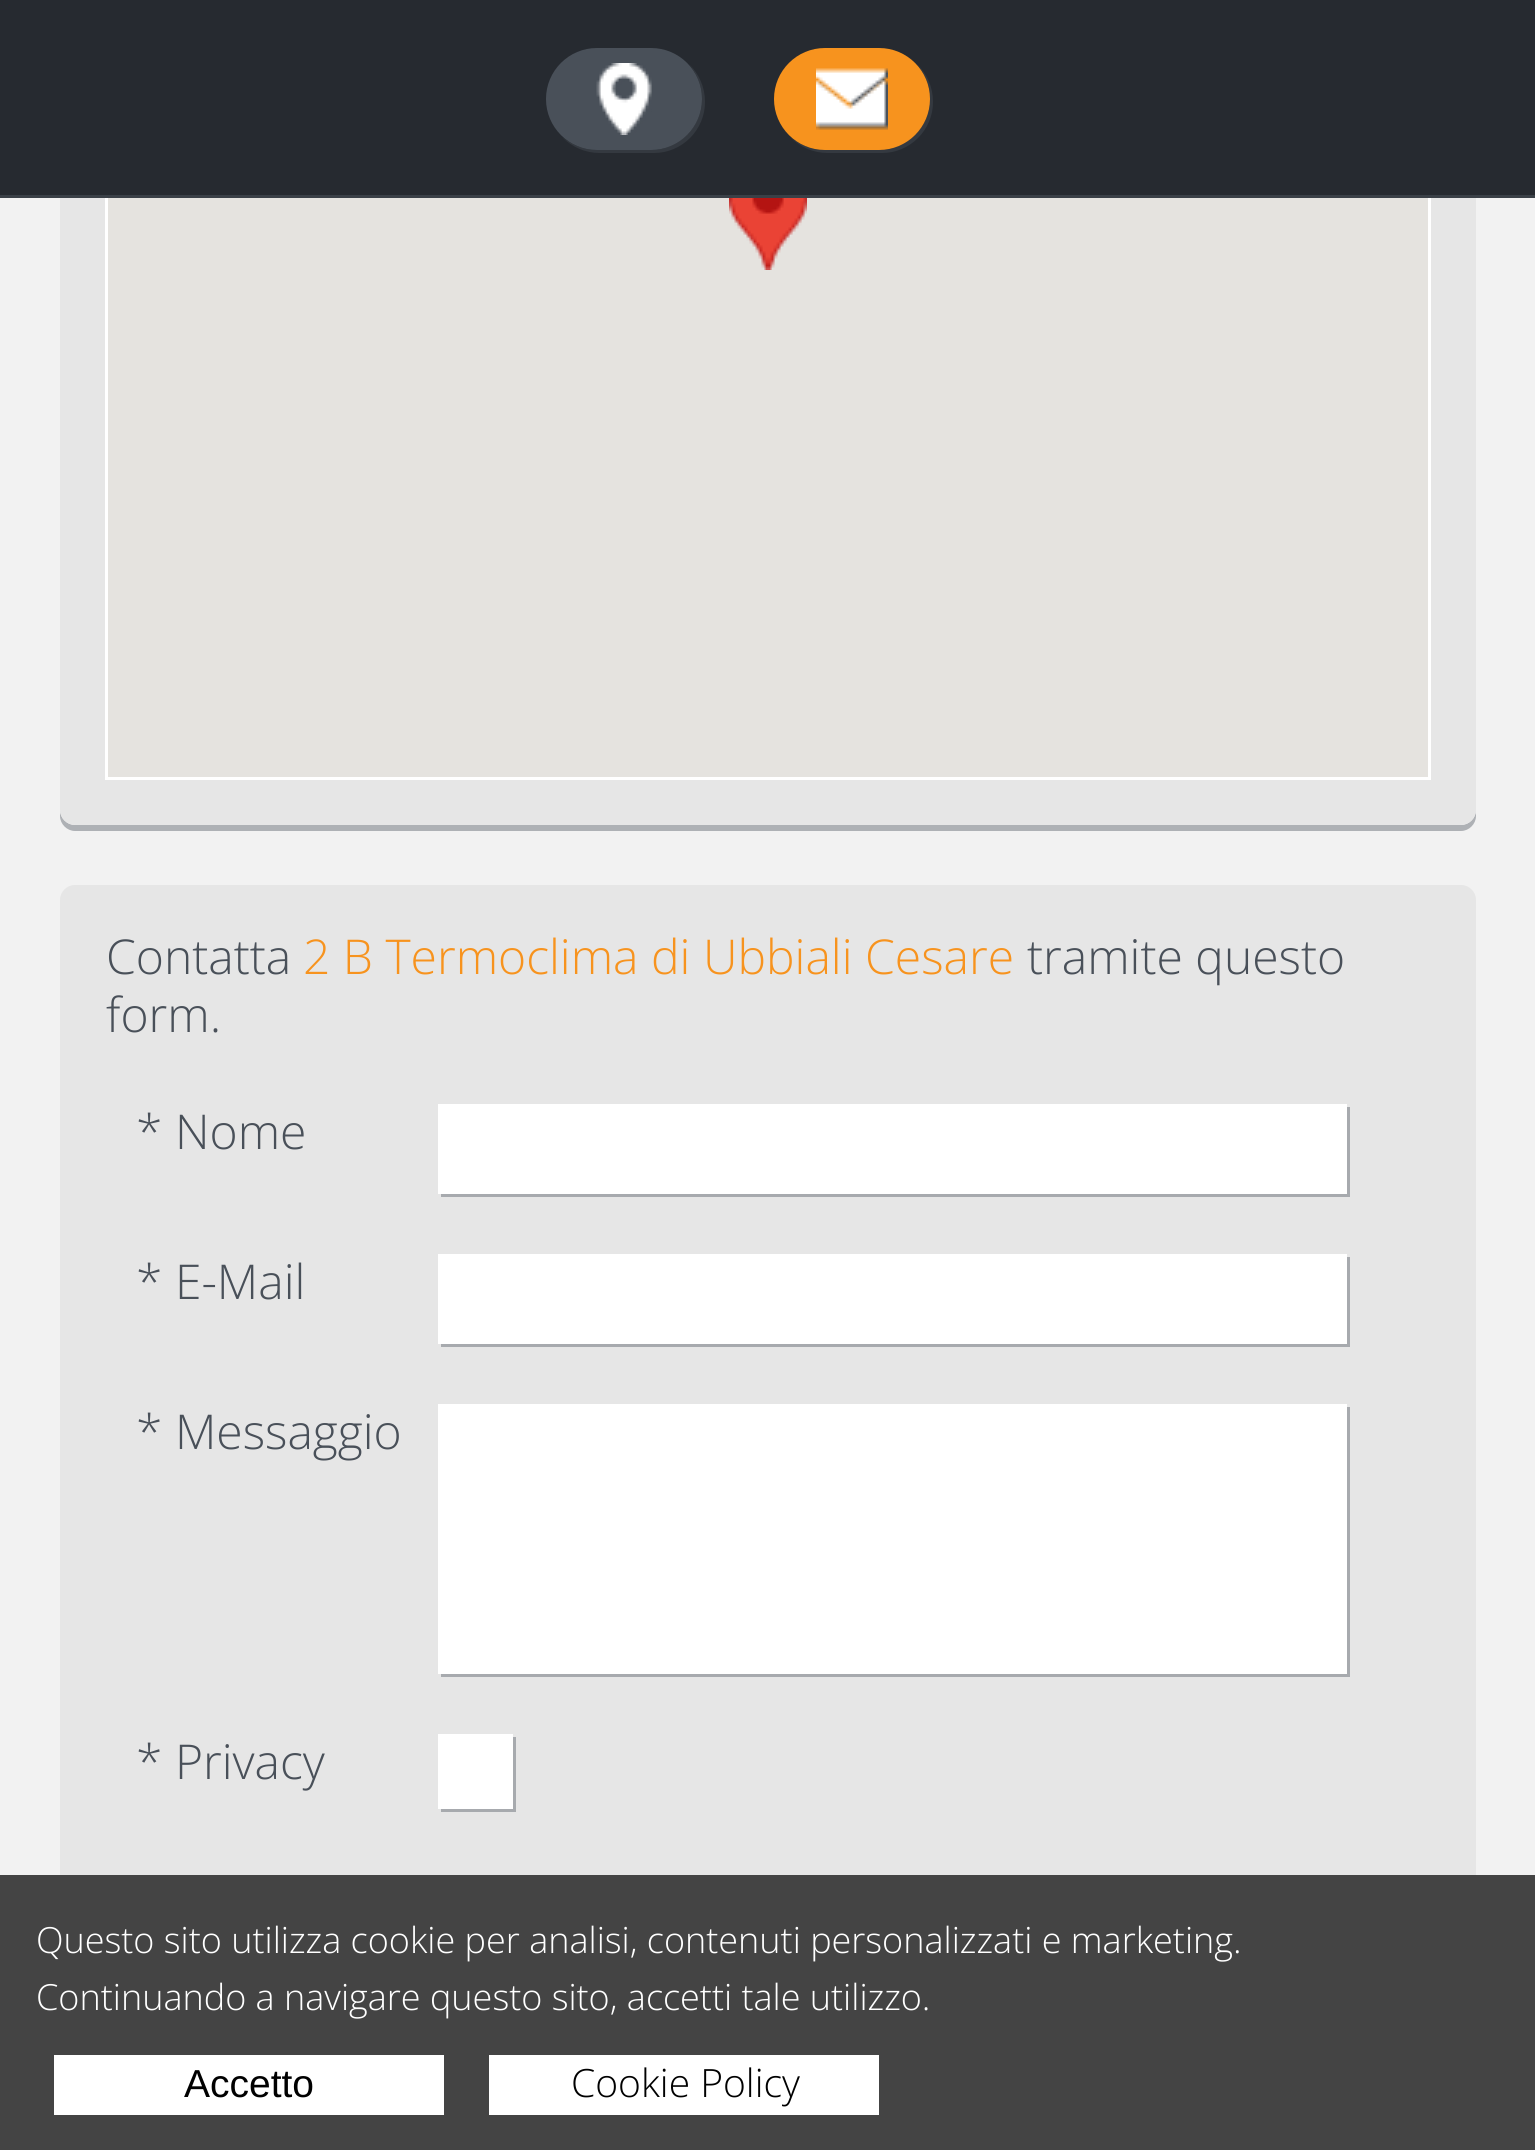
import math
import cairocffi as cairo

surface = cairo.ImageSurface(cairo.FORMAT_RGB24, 1535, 2150)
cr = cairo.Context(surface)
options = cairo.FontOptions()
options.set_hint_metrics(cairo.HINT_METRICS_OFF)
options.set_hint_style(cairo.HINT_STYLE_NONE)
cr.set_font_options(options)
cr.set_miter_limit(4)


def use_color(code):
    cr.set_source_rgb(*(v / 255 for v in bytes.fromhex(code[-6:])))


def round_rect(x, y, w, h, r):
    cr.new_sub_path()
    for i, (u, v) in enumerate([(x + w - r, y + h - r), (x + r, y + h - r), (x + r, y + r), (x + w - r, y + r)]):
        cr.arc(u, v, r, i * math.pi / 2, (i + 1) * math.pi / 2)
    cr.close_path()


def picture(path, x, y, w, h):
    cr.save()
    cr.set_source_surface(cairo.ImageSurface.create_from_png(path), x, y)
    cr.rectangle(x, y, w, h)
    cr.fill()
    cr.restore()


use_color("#f2f2f2")
cr.paint()
use_color("#aeb1b5")
cr.new_path()
cr.move_to(60, 810)
cr.line_to(60, 816)
cr.curve_to(60, 824, 67, 831, 75, 831)
cr.line_to(1461, 831)
cr.curve_to(1469, 831, 1476, 824, 1476, 816)
cr.line_to(1476, 810)
cr.curve_to(1476, 818, 1469, 825, 1461, 825)
cr.line_to(75, 825)
cr.curve_to(67, 825, 60, 818, 60, 810)
cr.close_path()
cr.fill()
use_color("#e6e6e6")
round_rect(60, -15, 1416, 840, 15)
cr.fill()
cr.rectangle(106.5, -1.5, 1323, 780)
use_color("#ffffff")
cr.set_line_width(3)
cr.stroke()
use_color("#262a30")
cr.rectangle(0, 0, 1535, 195)
cr.fill()
use_color("#3a4047")
cr.rectangle(0, 195, 1535, 3)
cr.fill()
use_color("#343940")
cr.new_path()
cr.move_to(562, 137)
cr.curve_to(572, 147, 585, 153, 600, 153)
cr.line_to(654, 153)
cr.curve_to(682, 153, 705, 130, 705, 102)
cr.curve_to(705, 87, 699, 74, 689, 64)
cr.curve_to(697, 74, 702, 86, 702, 99)
cr.curve_to(702, 127, 679, 150, 651, 150)
cr.line_to(597, 150)
cr.curve_to(584, 150, 572, 145, 562, 137)
cr.close_path()
cr.fill()
use_color("#495059")
round_rect(546, 48, 156, 102, 51)
cr.fill()
picture("img1.png", 596, 63, 56, 72)
use_color("#343940")
cr.new_path()
cr.move_to(790, 137)
cr.curve_to(800, 147, 813, 153, 828, 153)
cr.line_to(882, 153)
cr.curve_to(910, 153, 933, 130, 933, 102)
cr.curve_to(933, 87, 927, 74, 917, 64)
cr.curve_to(925, 74, 930, 86, 930, 99)
cr.curve_to(930, 127, 907, 150, 879, 150)
cr.line_to(825, 150)
cr.curve_to(812, 150, 800, 145, 790, 137)
cr.close_path()
cr.fill()
use_color("#f7931e")
round_rect(774, 48, 156, 102, 51)
cr.fill()
picture("img2.png", 816, 68, 72, 62)
use_color("#e5e3df")
cr.rectangle(108, 198, 1320, 579)
cr.fill()
picture("img3.png", 729, 198, 78, 72)
use_color("#e6e6e6")
round_rect(60, 885, 1416, 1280, 15)
cr.fill()
cr.select_font_face("Open Sans Light")
cr.set_font_size(48)
use_color("#495059")
cr.move_to(106, 974)
cr.show_text("Contatta")
use_color("#f7931e")
cr.move_to(303, 974)
cr.show_text("2 B Termoclima di Ubbiali Cesare")
use_color("#495059")
cr.move_to(1027, 974)
cr.show_text("tramite questo")
cr.move_to(106, 1032)
cr.show_text("form.")
cr.move_to(136, 1149)
cr.show_text("* Nome")
use_color("#a7aaae")
cr.new_path()
cr.move_to(441, 1194)
cr.line_to(441, 1197)
cr.line_to(1350, 1197)
cr.line_to(1350, 1107)
cr.line_to(1347, 1107)
cr.line_to(1347, 1194)
cr.close_path()
cr.fill()
use_color("#ffffff")
cr.rectangle(438, 1104, 909, 90)
cr.fill()
use_color("#495059")
cr.move_to(136, 1299)
cr.show_text("* E-Mail")
use_color("#a7aaae")
cr.new_path()
cr.move_to(441, 1344)
cr.line_to(441, 1347)
cr.line_to(1350, 1347)
cr.line_to(1350, 1257)
cr.line_to(1347, 1257)
cr.line_to(1347, 1344)
cr.close_path()
cr.fill()
use_color("#ffffff")
cr.rectangle(438, 1254, 909, 90)
cr.fill()
use_color("#495059")
cr.move_to(136, 1449)
cr.show_text("* Messaggio")
use_color("#a7aaae")
cr.new_path()
cr.move_to(441, 1674)
cr.line_to(441, 1677)
cr.line_to(1350, 1677)
cr.line_to(1350, 1407)
cr.line_to(1347, 1407)
cr.line_to(1347, 1674)
cr.close_path()
cr.fill()
use_color("#ffffff")
cr.rectangle(438, 1404, 909, 270)
cr.fill()
use_color("#495059")
cr.move_to(136, 1779)
cr.show_text("* Privacy")
use_color("#a7aaae")
cr.new_path()
cr.move_to(441, 1809)
cr.line_to(441, 1812)
cr.line_to(516, 1812)
cr.line_to(516, 1737)
cr.line_to(513, 1737)
cr.line_to(513, 1809)
cr.close_path()
cr.fill()
use_color("#ffffff")
cr.rectangle(438, 1734, 75, 75)
cr.fill()
use_color("#444444")
cr.rectangle(0, 1875, 1535, 275)
cr.fill()
cr.set_font_size(36)
use_color("#ffffff")
cr.move_to(36, 1953)
cr.show_text("Questo sito utilizza cookie per analisi, contenuti personalizzati e marketing.")
cr.move_to(36, 2010)
cr.show_text("Continuando a navigare questo sito, accetti tale utilizzo.")
cr.rectangle(54, 2055, 390, 60)
cr.fill()
cr.select_font_face("Liberation Sans")
cr.set_font_size(39)
use_color("#000000")
cr.move_to(184, 2097)
cr.show_text("Accetto")
use_color("#ffffff")
cr.rectangle(489, 2055, 390, 60)
cr.fill()
cr.select_font_face("Open Sans Light")
use_color("#000000")
cr.move_to(571, 2097)
cr.show_text("Cookie Policy")
surface.write_to_png("result.png")
